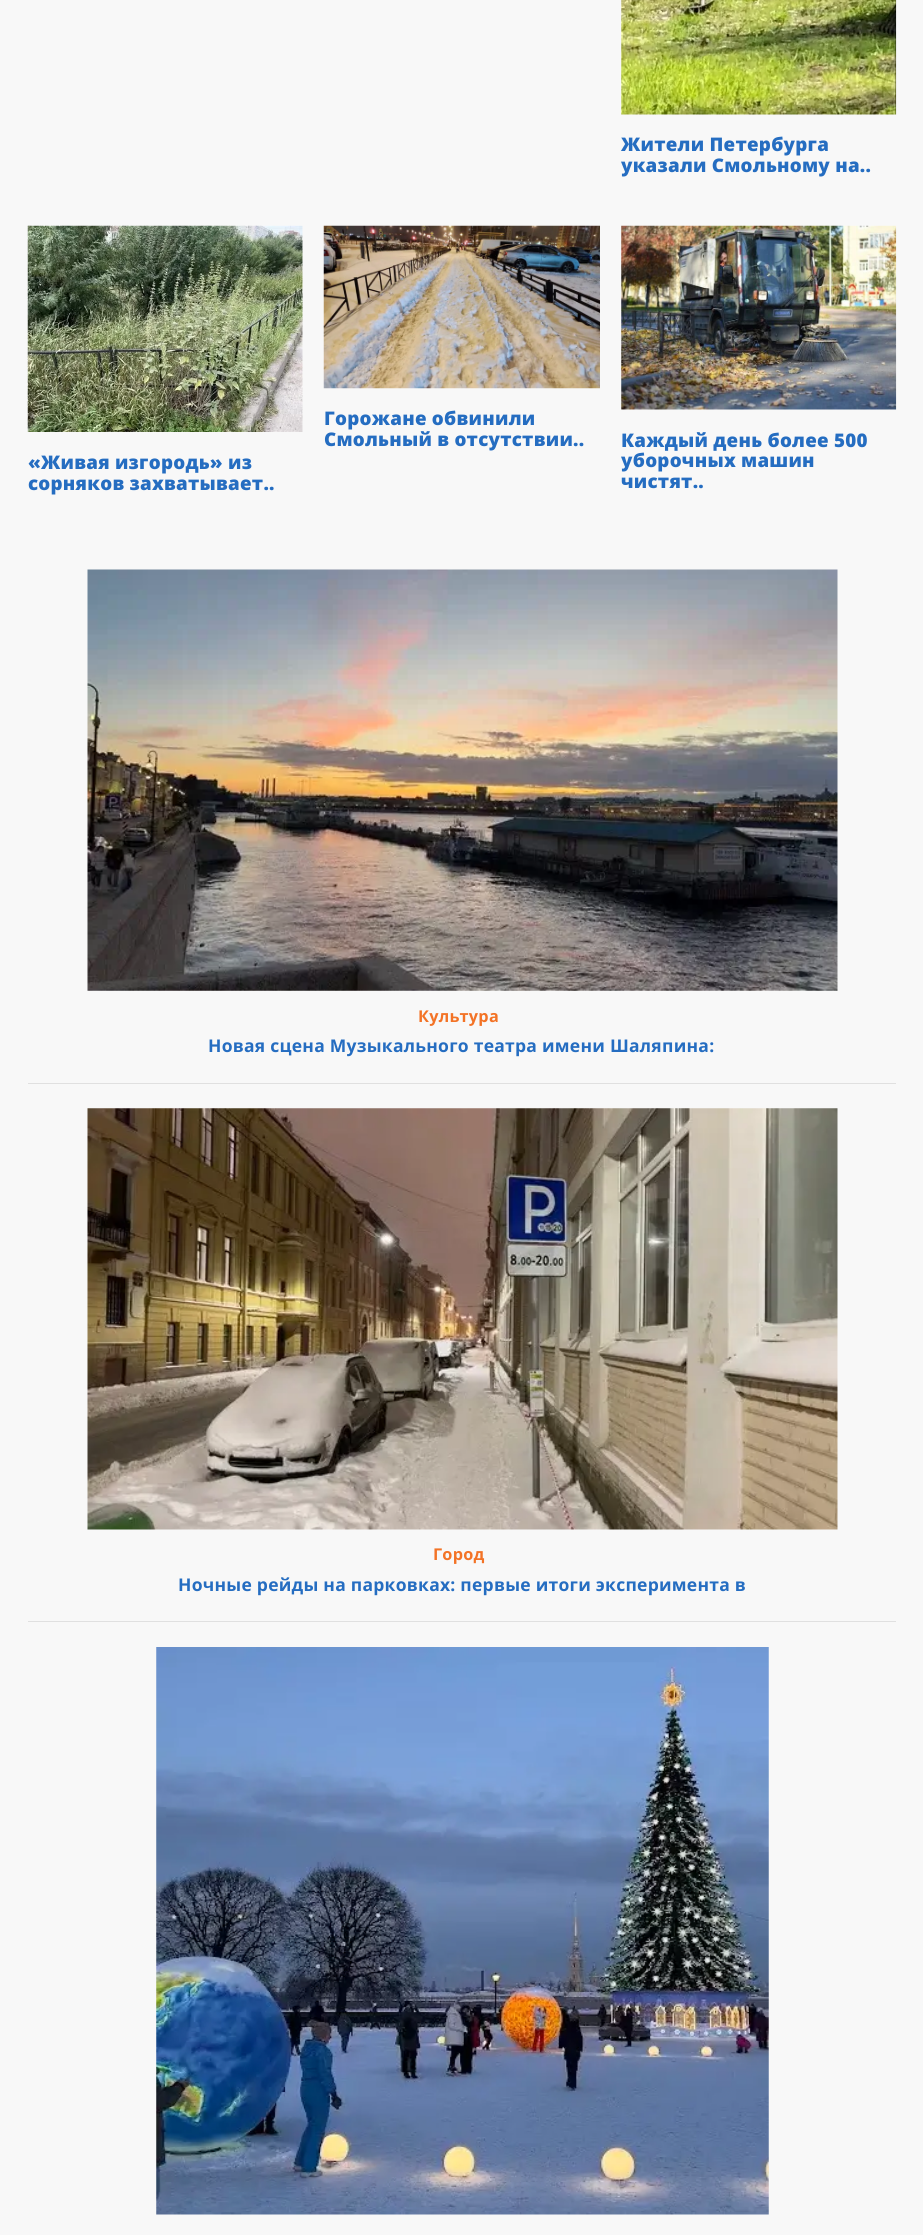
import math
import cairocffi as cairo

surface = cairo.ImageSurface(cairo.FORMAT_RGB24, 923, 2235)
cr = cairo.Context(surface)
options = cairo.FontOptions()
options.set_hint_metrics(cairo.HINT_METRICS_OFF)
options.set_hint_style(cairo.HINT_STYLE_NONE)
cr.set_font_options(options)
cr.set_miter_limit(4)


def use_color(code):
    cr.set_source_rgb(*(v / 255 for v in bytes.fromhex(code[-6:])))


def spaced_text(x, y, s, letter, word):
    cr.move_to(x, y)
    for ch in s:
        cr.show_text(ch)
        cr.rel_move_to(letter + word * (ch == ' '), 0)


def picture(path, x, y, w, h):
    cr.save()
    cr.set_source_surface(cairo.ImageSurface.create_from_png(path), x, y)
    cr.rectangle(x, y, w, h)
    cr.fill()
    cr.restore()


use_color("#f8f8f8")
cr.paint()
picture("img1.png", 621, 0, 276, 115)
cr.select_font_face("Open Sans ExtraBold")
cr.set_font_size(18.75)
use_color("#256dc1")
spaced_text(621, 151, "Жители Петербурга", 0.25, 0)
spaced_text(621, 172, "указали Смольному на..", 0.25, 0)
picture("img2.png", 27, 225, 276, 207)
spaced_text(28, 469, "«Живая изгородь» из", 0.25, 0)
spaced_text(28, 490, "сорняков захватывает..", 0.25, 0)
picture("img3.png", 323, 225, 277, 164)
spaced_text(324, 425, "Горожане обвинили", 0.25, 0)
spaced_text(324, 446, "Смольный в отсутствии..", 0.25, 0)
picture("img4.png", 621, 225, 276, 185)
spaced_text(621, 447, "Каждый день более 500", 0.25, 0)
spaced_text(621, 467, "уборочных машин", 0.25, 0)
spaced_text(621, 488, "чистят..", 0.25, 0)
use_color("#e0e0e0")
cr.rectangle(28, 1083, 868, 1)
cr.fill()
picture("img5.png", 87, 569, 751, 422)
cr.select_font_face("Open Sans", cairo.FONT_SLANT_NORMAL, cairo.FONT_WEIGHT_BOLD)
cr.set_font_size(16.25)
use_color("#f37326")
spaced_text(418, 1022, "Культура", 0.25, 0)
cr.set_font_size(17.5)
use_color("#256dc1")
spaced_text(208, 1052, "Новая сцена Музыкального театра имени Шаляпина:", 0.25, 0)
use_color("#e0e0e0")
cr.rectangle(28, 1621, 868, 1)
cr.fill()
picture("img6.png", 87, 1108, 751, 422)
cr.set_font_size(16.25)
use_color("#f37326")
spaced_text(433, 1560, "Город", 0.25, 0)
cr.set_font_size(17.5)
use_color("#256dc1")
spaced_text(178, 1591, "Ночные рейды на парковках: первые итоги эксперимента в", 0.25, 0)
picture("img7.png", 156, 1647, 613, 568)
surface.write_to_png("result.png")
